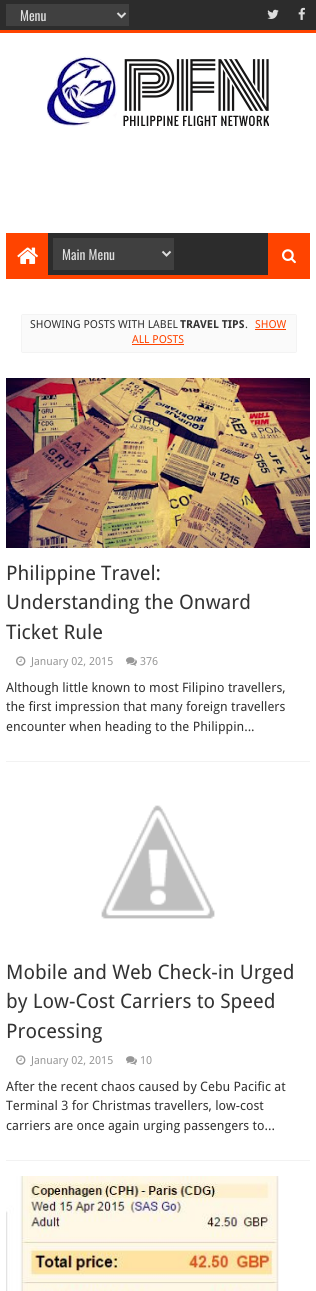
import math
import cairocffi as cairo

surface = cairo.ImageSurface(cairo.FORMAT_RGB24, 316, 1291)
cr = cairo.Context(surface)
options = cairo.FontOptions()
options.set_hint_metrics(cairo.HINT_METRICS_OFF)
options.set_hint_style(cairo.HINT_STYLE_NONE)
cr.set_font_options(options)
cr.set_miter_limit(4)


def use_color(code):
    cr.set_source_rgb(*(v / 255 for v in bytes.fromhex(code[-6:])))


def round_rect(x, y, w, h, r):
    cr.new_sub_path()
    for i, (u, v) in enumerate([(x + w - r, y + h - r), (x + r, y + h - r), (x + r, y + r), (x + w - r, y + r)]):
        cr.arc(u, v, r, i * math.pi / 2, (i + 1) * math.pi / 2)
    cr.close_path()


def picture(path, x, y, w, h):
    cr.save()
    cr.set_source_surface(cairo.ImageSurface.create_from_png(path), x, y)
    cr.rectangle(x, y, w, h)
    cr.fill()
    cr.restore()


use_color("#ffffff")
cr.paint()
use_color("#2c2c2c")
cr.rectangle(0, 0, 316, 30)
cr.fill()
use_color("#ff4400")
cr.rectangle(0, 30, 316, 3)
cr.fill()
use_color("#404040")
cr.rectangle(6, 4, 123, 22)
cr.fill()
cr.new_path()
cr.move_to(117.5, 13)
cr.line_to(121.5, 17)
cr.line_to(125.5, 13)
use_color("#dddddd")
cr.stroke()
cr.select_font_face("Oswald")
cr.set_font_size(13.5)
cr.move_to(20, 21)
cr.show_text("Menu")
picture("img1.png", 267, 9, 12, 10)
picture("img2.png", 298, 7, 7, 13)
picture("img3.png", 47, 56, 222, 71)
use_color("#2c2c2c")
cr.rectangle(48, 233, 220, 42)
cr.fill()
use_color("#ff4400")
cr.rectangle(6, 275, 304, 4)
cr.fill()
cr.rectangle(6, 233, 42, 42)
cr.fill()
picture("img4.png", 17, 247, 21, 17)
use_color("#404040")
cr.rectangle(53, 238, 121, 32)
cr.fill()
cr.new_path()
cr.move_to(162.5, 251.5)
cr.line_to(166.5, 255.5)
cr.line_to(170.5, 251.5)
use_color("#dddddd")
cr.stroke()
cr.move_to(62, 260)
cr.show_text("Main Menu")
use_color("#ff4400")
cr.rectangle(268, 233, 42, 42)
cr.fill()
picture("img5.png", 282, 249, 14, 15)
round_rect(21.5, 314.5, 275, 38, 1.5)
use_color("#f3f3f3")
cr.set_line_width(1)
cr.stroke()
use_color("#fafafa")
cr.rectangle(22, 315, 274, 37)
cr.fill()
cr.select_font_face("Droid Sans")
cr.set_font_size(11)
use_color("#333333")
cr.move_to(30, 328)
cr.show_text("SHOWING POSTS WITH LABEL")
cr.select_font_face("Droid Sans", cairo.FONT_SLANT_NORMAL, cairo.FONT_WEIGHT_BOLD)
cr.move_to(180, 328)
cr.show_text("TRAVEL TIPS")
cr.select_font_face("Droid Sans")
cr.move_to(245, 328)
cr.show_text(".")
use_color("#ff4400")
cr.move_to(255, 328)
cr.show_text("SHOW")
cr.rectangle(255, 329, 31, 1)
cr.fill()
cr.move_to(132, 343)
cr.show_text("ALL POSTS")
cr.rectangle(132, 344, 52, 1)
cr.fill()
use_color("#f2f2f2")
cr.rectangle(6, 761, 304, 1)
cr.fill()
picture("img6.png", 6, 378, 304, 170)
cr.set_font_size(20)
use_color("#333333")
cr.move_to(6, 580)
cr.show_text("Philippine Travel:")
cr.move_to(6, 609)
cr.show_text("Understanding the Onward")
cr.move_to(6, 639)
cr.show_text("Ticket Rule")
picture("img7.png", 16, 656, 10, 10)
cr.set_font_size(11)
use_color("#979797")
cr.move_to(31, 665)
cr.show_text("January 02, 2015")
picture("img8.png", 126, 657, 11, 9)
cr.move_to(140, 665)
cr.show_text("376")
cr.set_font_size(13)
use_color("#333333")
cr.move_to(6, 692)
cr.show_text("Although little known to most Filipino travellers,")
cr.move_to(6, 711)
cr.show_text("the first impression that many foreign travellers")
cr.move_to(6, 731)
cr.show_text("encounter when heading to the Philippin...")
use_color("#f2f2f2")
cr.rectangle(6, 1160, 304, 1)
cr.fill()
picture("img9.png", 101, 805, 114, 114)
cr.set_font_size(20)
use_color("#333333")
cr.move_to(6, 979)
cr.show_text("Mobile and Web Check-in Urged")
cr.move_to(6, 1008)
cr.show_text("by Low-Cost Carriers to Speed")
cr.move_to(6, 1038)
cr.show_text("Processing")
picture("img7.png", 16, 1055, 10, 10)
cr.set_font_size(11)
use_color("#979797")
cr.move_to(31, 1064)
cr.show_text("January 02, 2015")
picture("img8.png", 126, 1056, 11, 9)
cr.move_to(140, 1064)
cr.show_text("10")
cr.set_font_size(13)
use_color("#333333")
cr.move_to(6, 1091)
cr.show_text("After the recent chaos caused by Cebu Pacific at")
cr.move_to(6, 1110)
cr.show_text("Terminal 3 for Christmas travellers, low-cost")
cr.move_to(6, 1130)
cr.show_text("carriers are once again urging passengers to...")
picture("img10.png", 6, 1176, 273, 115)
surface.write_to_png("result.png")
